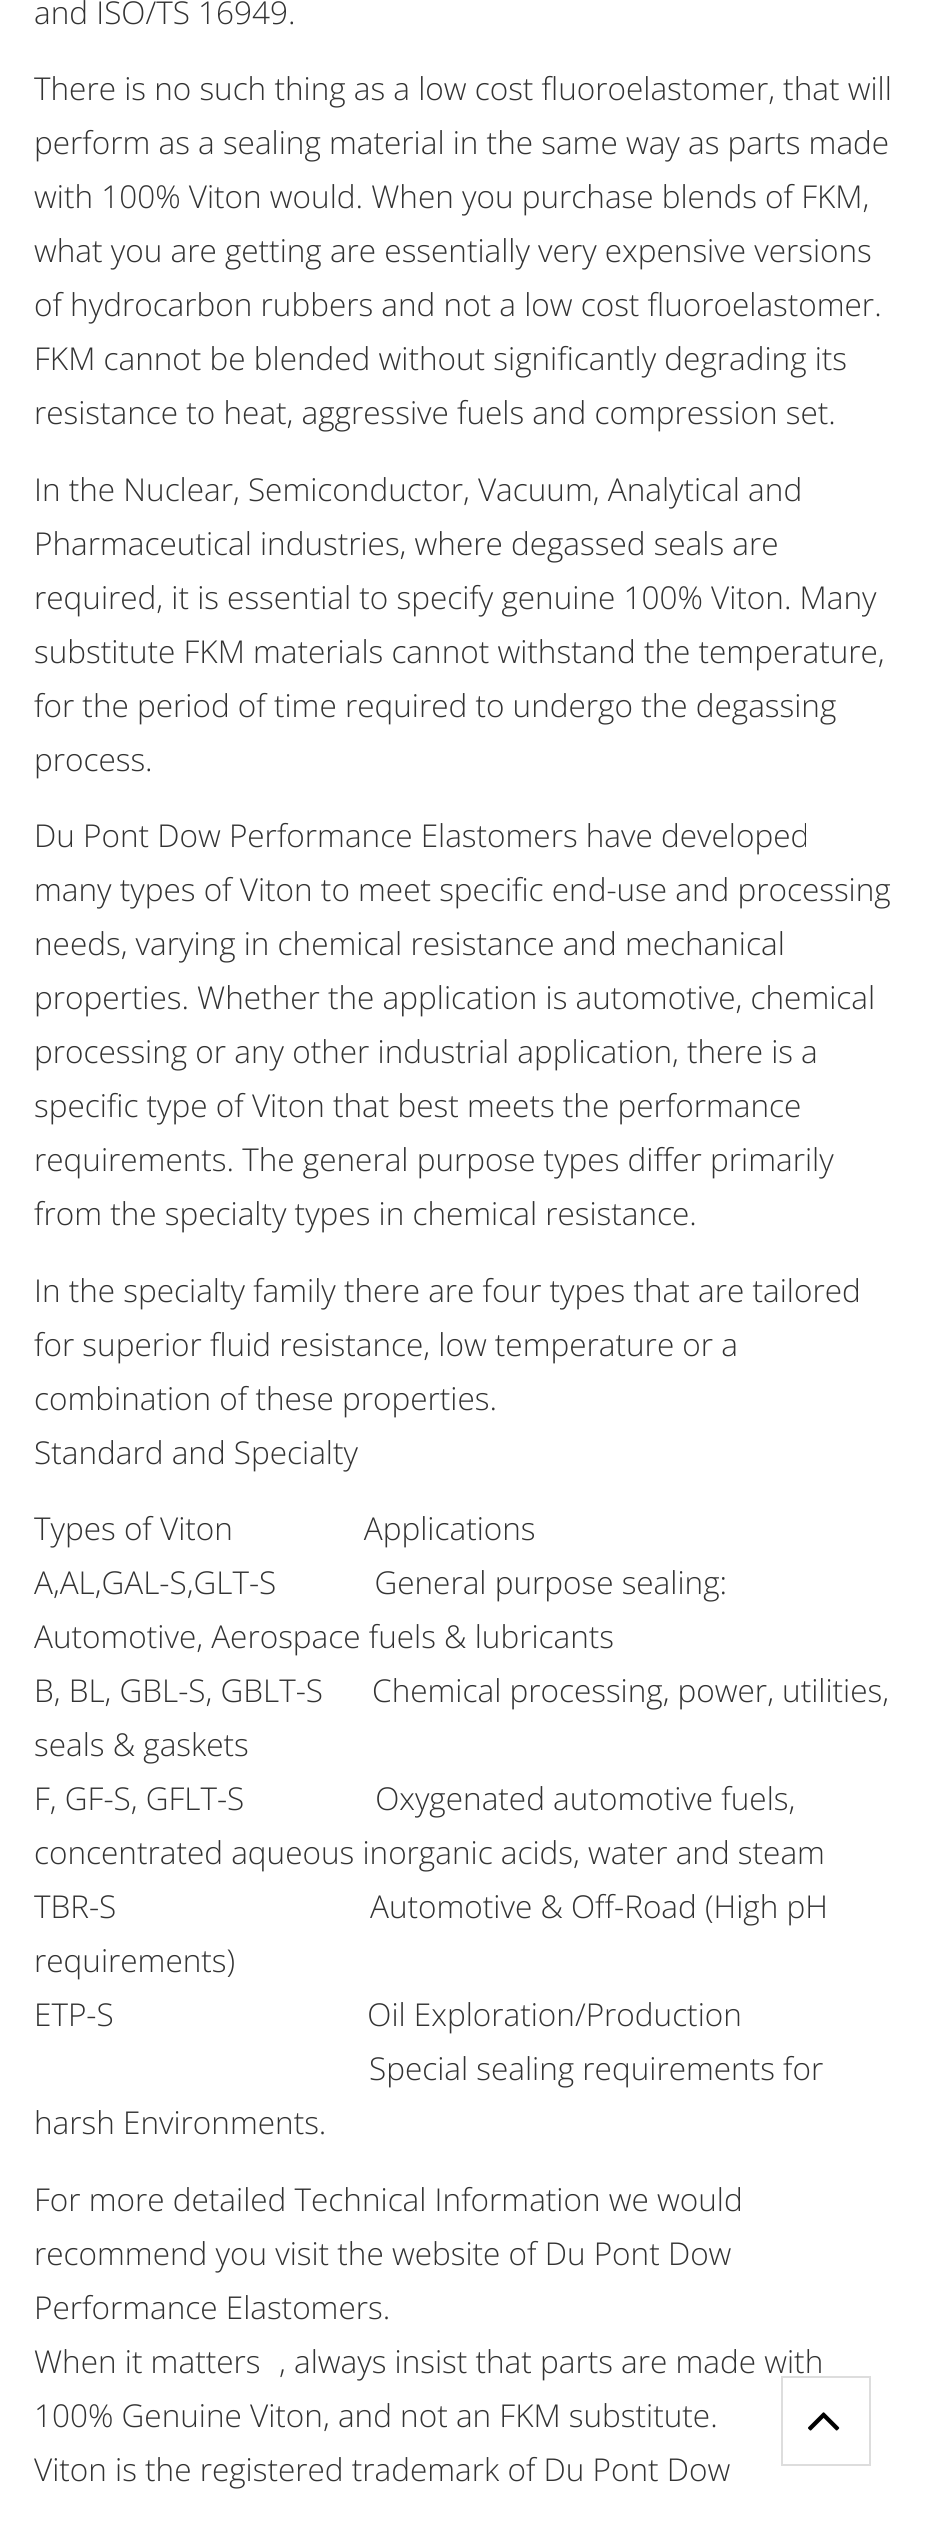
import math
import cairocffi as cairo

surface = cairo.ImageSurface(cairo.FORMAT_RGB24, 925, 2522)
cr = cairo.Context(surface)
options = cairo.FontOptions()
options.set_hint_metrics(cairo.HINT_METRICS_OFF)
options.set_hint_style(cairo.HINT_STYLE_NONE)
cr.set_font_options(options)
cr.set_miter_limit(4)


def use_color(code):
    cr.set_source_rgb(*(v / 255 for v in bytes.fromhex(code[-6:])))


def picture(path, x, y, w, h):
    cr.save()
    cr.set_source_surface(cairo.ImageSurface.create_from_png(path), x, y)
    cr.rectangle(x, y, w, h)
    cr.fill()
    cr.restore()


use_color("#ffffff")
cr.paint()
cr.select_font_face("Open Sans Light")
cr.set_font_size(31.5)
use_color("#333333")
cr.move_to(34, 24)
cr.show_text("and ISO/TS 16949.")
cr.move_to(34, 100)
cr.show_text("There is no such thing as a low cost fluoroelastomer, that will")
cr.move_to(34, 154)
cr.show_text("perform as a sealing material in the same way as parts made")
cr.move_to(34, 208)
cr.show_text("with 100% Viton would. When you purchase blends of FKM,")
cr.move_to(34, 262)
cr.show_text("what you are getting are essentially very expensive versions")
cr.move_to(34, 316)
cr.show_text("of hydrocarbon rubbers and not a low cost fluoroelastomer.")
cr.move_to(34, 370)
cr.show_text("FKM cannot be blended without significantly degrading its")
cr.move_to(34, 424)
cr.show_text("resistance to heat, aggressive fuels and compression set.")
cr.move_to(34, 501)
cr.show_text("In the Nuclear, Semiconductor, Vacuum, Analytical and")
cr.move_to(34, 555)
cr.show_text("Pharmaceutical industries, where degassed seals are")
cr.move_to(34, 609)
cr.show_text("required, it is essential to specify genuine 100% Viton. Many")
cr.move_to(34, 663)
cr.show_text("substitute FKM materials cannot withstand the temperature,")
cr.move_to(34, 717)
cr.show_text("for the period of time required to undergo the degassing")
cr.move_to(34, 771)
cr.show_text("process.")
cr.move_to(34, 847)
cr.show_text("Du Pont Dow Performance Elastomers have developed")
cr.move_to(34, 901)
cr.show_text("many types of Viton to meet specific end-use and processing")
cr.move_to(34, 955)
cr.show_text("needs, varying in chemical resistance and mechanical")
cr.move_to(34, 1009)
cr.show_text("properties. Whether the application is automotive, chemical")
cr.move_to(34, 1063)
cr.show_text("processing or any other industrial application, there is a")
cr.move_to(34, 1117)
cr.show_text("specific type of Viton that best meets the performance")
cr.move_to(34, 1171)
cr.show_text("requirements. The general purpose types differ primarily")
cr.move_to(34, 1225)
cr.show_text("from the specialty types in chemical resistance.")
cr.move_to(34, 1302)
cr.show_text("In the specialty family there are four types that are tailored")
cr.move_to(34, 1356)
cr.show_text("for superior fluid resistance, low temperature or a")
cr.move_to(34, 1410)
cr.show_text("combination of these properties.")
cr.move_to(34, 1464)
cr.show_text("Standard and Specialty")
cr.move_to(34, 1540)
cr.show_text("Types of Viton                Applications")
cr.move_to(34, 1594)
cr.show_text("A,AL,GAL-S,GLT-S            General purpose sealing:")
cr.move_to(34, 1648)
cr.show_text("Automotive, Aerospace fuels & lubricants")
cr.move_to(34, 1702)
cr.show_text("B, BL, GBL-S, GBLT-S      Chemical processing, power, utilities,")
cr.move_to(34, 1756)
cr.show_text("seals & gaskets")
cr.move_to(34, 1810)
cr.show_text("F, GF-S, GFLT-S                Oxygenated automotive fuels,")
cr.move_to(34, 1864)
cr.show_text("concentrated aqueous inorganic acids, water and steam")
cr.move_to(34, 1918)
cr.show_text("TBR-S                               Automotive & Off-Road (High pH")
cr.move_to(34, 1972)
cr.show_text("requirements)")
cr.move_to(34, 2026)
cr.show_text("ETP-S                               Oil Exploration/Production")
cr.move_to(369, 2080)
cr.show_text("Special sealing requirements for")
cr.move_to(34, 2134)
cr.show_text("harsh Environments.")
cr.move_to(34, 2211)
cr.show_text("For more detailed Technical Information we would")
cr.move_to(34, 2265)
cr.show_text("recommend you visit the website of Du Pont Dow")
cr.move_to(34, 2319)
cr.show_text("Performance Elastomers.")
cr.move_to(34, 2373)
cr.show_text("When it matters")
cr.move_to(279, 2373)
cr.show_text(", always insist that parts are made with")
cr.move_to(34, 2427)
cr.show_text("100% Genuine Viton, and not an FKM substitute.")
cr.move_to(34, 2481)
cr.show_text("Viton is the registered trademark of Du Pont Dow")
cr.rectangle(782, 2377, 88, 88)
use_color("#dddddd")
cr.stroke()
picture("img1.png", 808, 2412, 32, 19)
surface.write_to_png("result.png")
